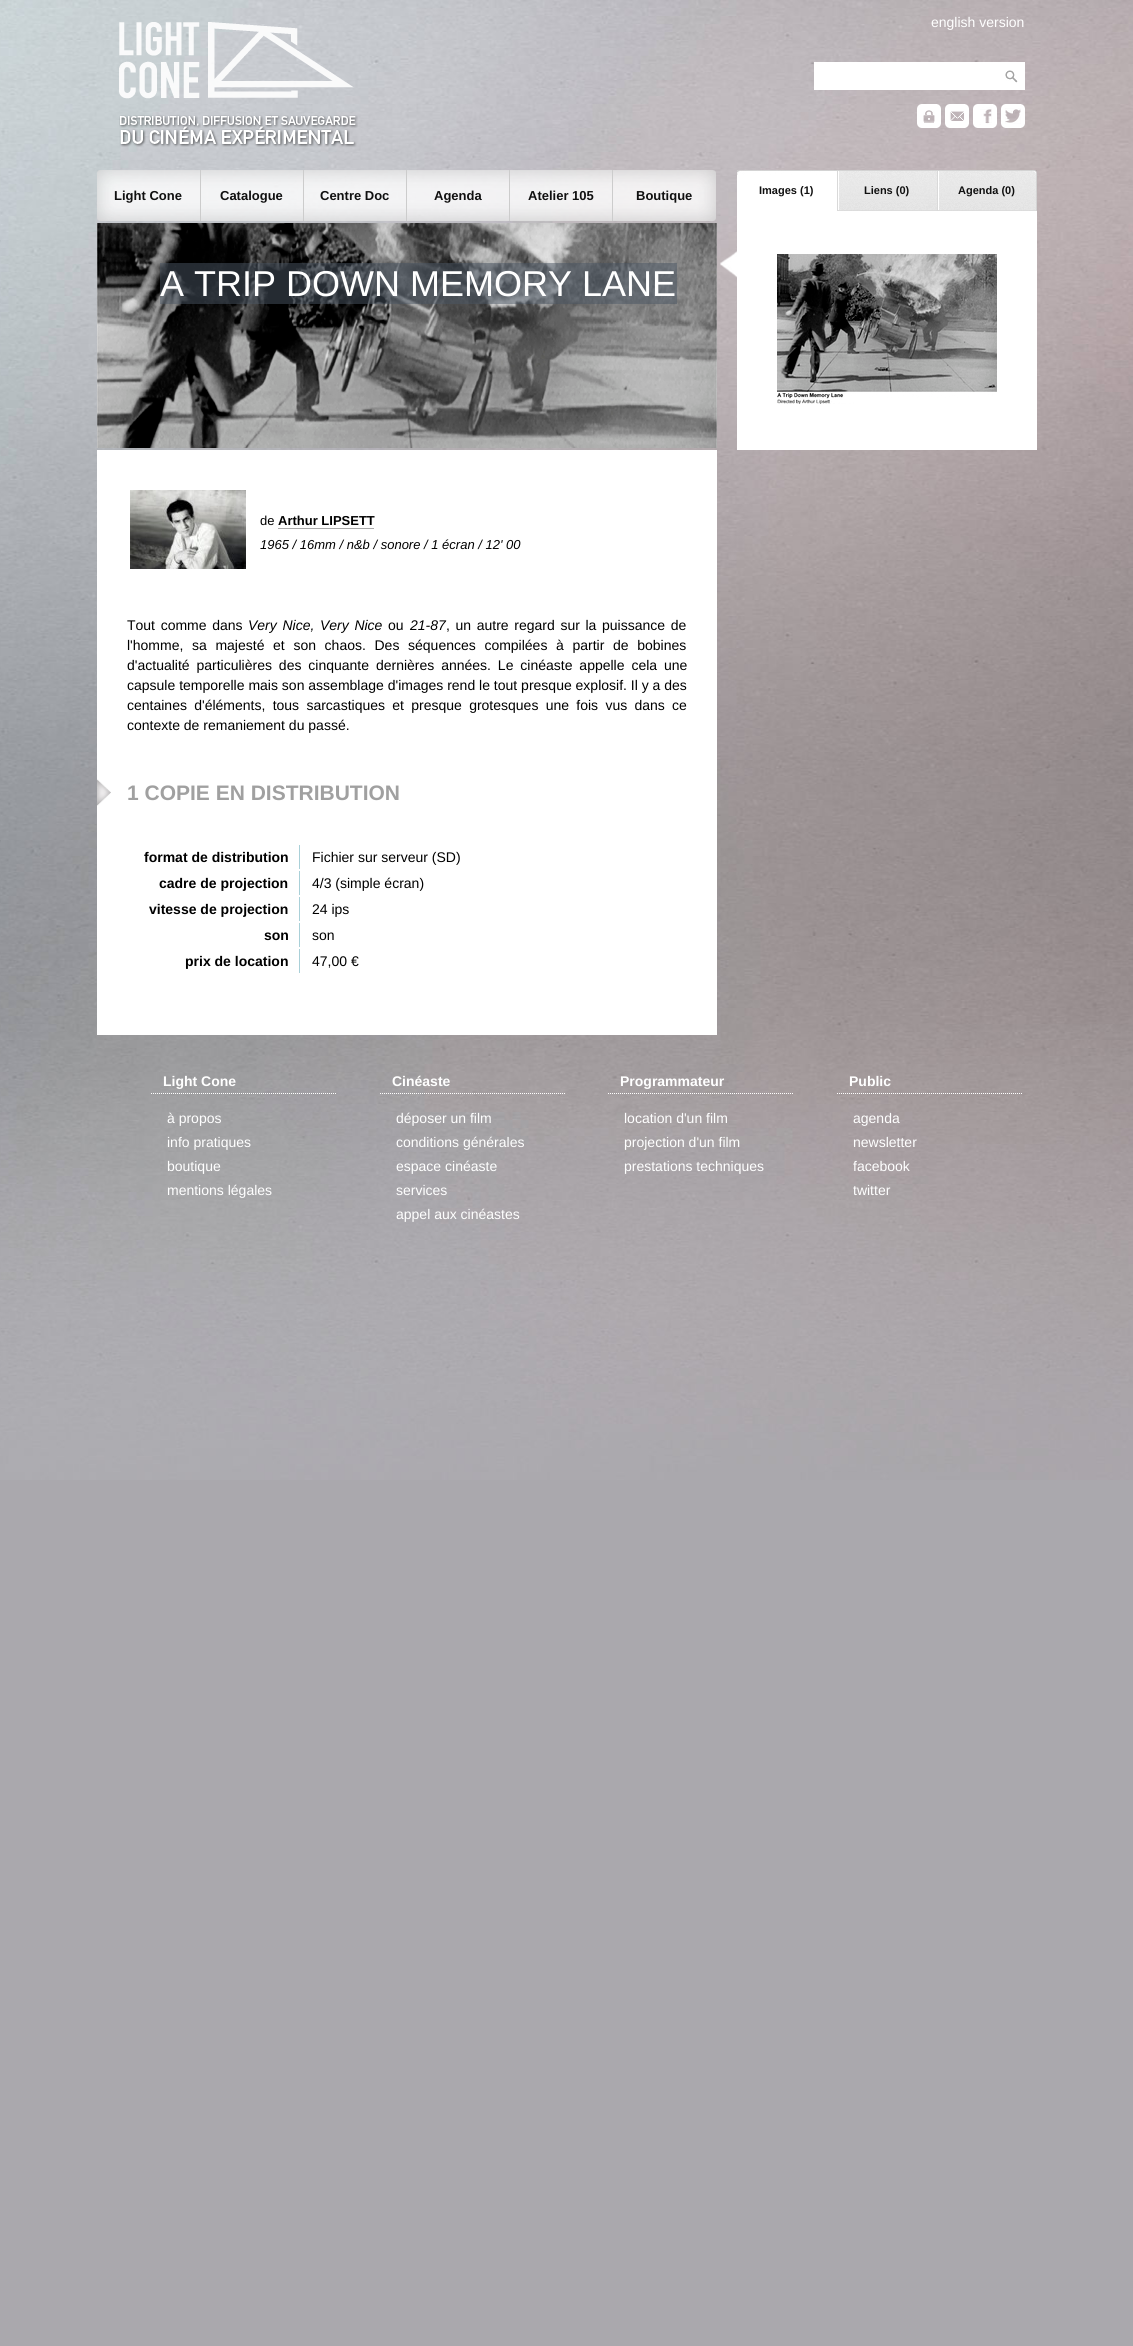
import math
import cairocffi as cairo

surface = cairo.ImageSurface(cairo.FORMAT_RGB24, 1133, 2346)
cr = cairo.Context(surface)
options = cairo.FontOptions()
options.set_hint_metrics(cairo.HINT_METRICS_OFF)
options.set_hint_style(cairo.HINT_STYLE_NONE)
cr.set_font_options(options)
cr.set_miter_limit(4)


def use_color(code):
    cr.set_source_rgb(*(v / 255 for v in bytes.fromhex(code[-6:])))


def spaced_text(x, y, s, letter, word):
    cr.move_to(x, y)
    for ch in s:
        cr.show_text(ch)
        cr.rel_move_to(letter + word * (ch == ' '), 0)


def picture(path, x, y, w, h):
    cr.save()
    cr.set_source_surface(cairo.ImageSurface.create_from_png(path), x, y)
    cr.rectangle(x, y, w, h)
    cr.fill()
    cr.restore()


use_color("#aaa8ad")
cr.paint()
picture("img1.png", 0, 0, 1133, 1480)
picture("img2.png", 119, 22, 239, 125)
cr.select_font_face("Liberation Sans")
cr.set_font_size(14)
use_color("#ffffff")
cr.move_to(931, 27)
cr.show_text("english version")
cr.rectangle(814, 62, 211, 28)
cr.fill()
picture("img3.png", 1005, 70, 13, 13)
picture("img4.png", 917, 104, 24, 24)
picture("img5.png", 945, 104, 24, 24)
picture("img6.png", 973, 104, 24, 24)
picture("img7.png", 1001, 104, 24, 24)
picture("img8.png", 97, 170, 103, 51)
cr.select_font_face("Liberation Sans", cairo.FONT_SLANT_NORMAL, cairo.FONT_WEIGHT_BOLD)
cr.set_font_size(13)
use_color("#101010")
cr.move_to(114, 200)
cr.show_text("Light Cone")
picture("img9.png", 201, 170, 102, 51)
use_color("#cccccc")
cr.rectangle(200, 170, 1, 51)
cr.fill()
use_color("#101010")
cr.move_to(220, 200)
cr.show_text("Catalogue")
picture("img10.png", 304, 170, 102, 51)
use_color("#cccccc")
cr.rectangle(303, 170, 1, 51)
cr.fill()
use_color("#101010")
cr.move_to(320, 200)
cr.show_text("Centre Doc")
picture("img11.png", 407, 170, 102, 51)
use_color("#cccccc")
cr.rectangle(406, 170, 1, 51)
cr.fill()
use_color("#101010")
cr.move_to(434, 200)
cr.show_text("Agenda")
picture("img12.png", 510, 170, 102, 51)
use_color("#cccccc")
cr.rectangle(509, 170, 1, 51)
cr.fill()
use_color("#101010")
cr.move_to(528, 200)
cr.show_text("Atelier 105")
picture("img13.png", 613, 170, 103, 51)
use_color("#cccccc")
cr.rectangle(612, 170, 1, 51)
cr.fill()
use_color("#101010")
cr.move_to(636, 200)
cr.show_text("Boutique")
picture("img14.png", 720, 250, 17, 28)
picture("img15.png", 737, 170, 100, 41)
cr.set_font_size(11)
cr.move_to(759, 194)
cr.show_text("Images (1)")
picture("img16.png", 837, 170, 100, 41)
cr.move_to(864, 194)
cr.show_text("Liens (0)")
picture("img17.png", 937, 170, 100, 41)
cr.move_to(958, 194)
cr.show_text("Agenda (0)")
use_color("#ffffff")
cr.rectangle(737, 211, 300, 239)
cr.fill()
picture("img18.png", 777, 254, 220, 150)
picture("img19.png", 97, 223, 620, 225)
cr.set_source_rgba(0.29, 0.337, 0.392, 0.5)
cr.rectangle(160, 263, 517, 41)
cr.fill()
cr.select_font_face("Liberation Sans")
cr.set_font_size(36)
use_color("#ffffff")
cr.move_to(160, 296)
cr.show_text("A TRIP DOWN MEMORY LANE")
cr.rectangle(97, 450, 620, 585)
cr.fill()
picture("img20.png", 130, 490, 116, 79)
cr.set_font_size(13)
use_color("#000000")
cr.move_to(260, 525)
cr.show_text("de")
cr.select_font_face("Liberation Sans", cairo.FONT_SLANT_NORMAL, cairo.FONT_WEIGHT_BOLD)
cr.move_to(278, 525)
cr.show_text("Arthur LIPSETT")
use_color("#aaaaaa")
cr.rectangle(278, 528, 96, 1)
cr.fill()
cr.select_font_face("Liberation Sans", cairo.FONT_SLANT_ITALIC)
use_color("#000000")
cr.move_to(260, 549)
cr.show_text("1965 / 16mm / n&b / sonore / 1 écran / 12' 00")
cr.select_font_face("Liberation Sans")
cr.set_font_size(14)
spaced_text(127, 630, "Tout comme dans", 0, 1.75)
cr.select_font_face("Liberation Sans", cairo.FONT_SLANT_ITALIC)
spaced_text(248, 630, "Very Nice, Very Nice", 0, 1.75)
cr.select_font_face("Liberation Sans")
cr.move_to(388, 630)
cr.show_text("ou")
cr.select_font_face("Liberation Sans", cairo.FONT_SLANT_ITALIC)
cr.move_to(410, 630)
cr.show_text("21-87")
cr.select_font_face("Liberation Sans")
spaced_text(446, 630, ", un autre regard sur la puissance de", 0, 1.75)
spaced_text(127, 650, "l'homme, sa majesté et son chaos. Des séquences compilées à partir de bobines", 0, 4.75)
spaced_text(127, 670, "d'actualité particulières des cinquante dernières années. Le cinéaste appelle cela une", 0, 3)
cr.move_to(127, 690)
cr.show_text("capsule temporelle mais son assemblage d'images rend le tout presque explosif. Il y a des")
spaced_text(127, 710, "centaines d'éléments, tous sarcastiques et presque grotesques une fois vus dans ce", 0, 3.4)
cr.move_to(127, 730)
cr.show_text("contexte de remaniement du passé.")
picture("img21.png", 97, 779, 14, 27)
cr.select_font_face("Liberation Sans", cairo.FONT_SLANT_NORMAL, cairo.FONT_WEIGHT_BOLD)
cr.set_font_size(21)
use_color("#a0a0a0")
cr.move_to(127, 800)
cr.show_text("1 COPIE EN DISTRIBUTION")
use_color("#a9d0d8")
cr.rectangle(299, 845, 1, 24)
cr.fill()
cr.set_font_size(14)
use_color("#000000")
cr.move_to(144, 862)
cr.show_text("format de distribution")
cr.select_font_face("Liberation Sans")
cr.move_to(312, 862)
cr.show_text("Fichier sur serveur (SD)")
use_color("#a9d0d8")
cr.rectangle(299, 871, 1, 24)
cr.fill()
cr.select_font_face("Liberation Sans", cairo.FONT_SLANT_NORMAL, cairo.FONT_WEIGHT_BOLD)
use_color("#000000")
cr.move_to(159, 888)
cr.show_text("cadre de projection")
cr.select_font_face("Liberation Sans")
cr.move_to(312, 888)
cr.show_text("4/3 (simple écran)")
use_color("#a9d0d8")
cr.rectangle(299, 897, 1, 24)
cr.fill()
cr.select_font_face("Liberation Sans", cairo.FONT_SLANT_NORMAL, cairo.FONT_WEIGHT_BOLD)
use_color("#000000")
cr.move_to(149, 914)
cr.show_text("vitesse de projection")
cr.select_font_face("Liberation Sans")
cr.move_to(312, 914)
cr.show_text("24 ips")
use_color("#a9d0d8")
cr.rectangle(299, 923, 1, 24)
cr.fill()
cr.select_font_face("Liberation Sans", cairo.FONT_SLANT_NORMAL, cairo.FONT_WEIGHT_BOLD)
use_color("#000000")
cr.move_to(264, 940)
cr.show_text("son")
cr.select_font_face("Liberation Sans")
cr.move_to(312, 940)
cr.show_text("son")
use_color("#a9d0d8")
cr.rectangle(299, 949, 1, 24)
cr.fill()
cr.select_font_face("Liberation Sans", cairo.FONT_SLANT_NORMAL, cairo.FONT_WEIGHT_BOLD)
use_color("#000000")
cr.move_to(185, 966)
cr.show_text("prix de location")
cr.select_font_face("Liberation Sans")
cr.move_to(312, 966)
cr.show_text("47,00 €")
cr.new_path()
cr.move_to(151, 1093.5)
cr.line_to(336, 1093.5)
use_color("#ffffff")
cr.set_line_width(1)
cr.set_dash([1, 1])
cr.stroke()
cr.select_font_face("Liberation Sans", cairo.FONT_SLANT_NORMAL, cairo.FONT_WEIGHT_BOLD)
cr.move_to(163, 1086)
cr.show_text("Light Cone")
cr.select_font_face("Liberation Sans")
cr.move_to(167, 1123)
cr.show_text("à propos")
cr.move_to(167, 1147)
cr.show_text("info pratiques")
cr.move_to(167, 1171)
cr.show_text("boutique")
cr.move_to(167, 1195)
cr.show_text("mentions légales")
cr.new_path()
cr.move_to(380, 1093.5)
cr.line_to(565, 1093.5)
cr.stroke()
cr.select_font_face("Liberation Sans", cairo.FONT_SLANT_NORMAL, cairo.FONT_WEIGHT_BOLD)
cr.move_to(392, 1086)
cr.show_text("Cinéaste")
cr.select_font_face("Liberation Sans")
cr.move_to(396, 1123)
cr.show_text("déposer un film")
cr.move_to(396, 1147)
cr.show_text("conditions générales")
cr.move_to(396, 1171)
cr.show_text("espace cinéaste")
cr.move_to(396, 1195)
cr.show_text("services")
cr.move_to(396, 1219)
cr.show_text("appel aux cinéastes")
cr.new_path()
cr.move_to(608, 1093.5)
cr.line_to(793, 1093.5)
cr.stroke()
cr.select_font_face("Liberation Sans", cairo.FONT_SLANT_NORMAL, cairo.FONT_WEIGHT_BOLD)
cr.move_to(620, 1086)
cr.show_text("Programmateur")
cr.select_font_face("Liberation Sans")
cr.move_to(624, 1123)
cr.show_text("location d'un film")
cr.move_to(624, 1147)
cr.show_text("projection d'un film")
cr.move_to(624, 1171)
cr.show_text("prestations techniques")
cr.new_path()
cr.move_to(837, 1093.5)
cr.line_to(1022, 1093.5)
cr.stroke()
cr.select_font_face("Liberation Sans", cairo.FONT_SLANT_NORMAL, cairo.FONT_WEIGHT_BOLD)
cr.move_to(849, 1086)
cr.show_text("Public")
cr.select_font_face("Liberation Sans")
cr.move_to(853, 1123)
cr.show_text("agenda")
cr.move_to(853, 1147)
cr.show_text("newsletter")
cr.move_to(853, 1171)
cr.show_text("facebook")
cr.move_to(853, 1195)
cr.show_text("twitter")
surface.write_to_png("result.png")
